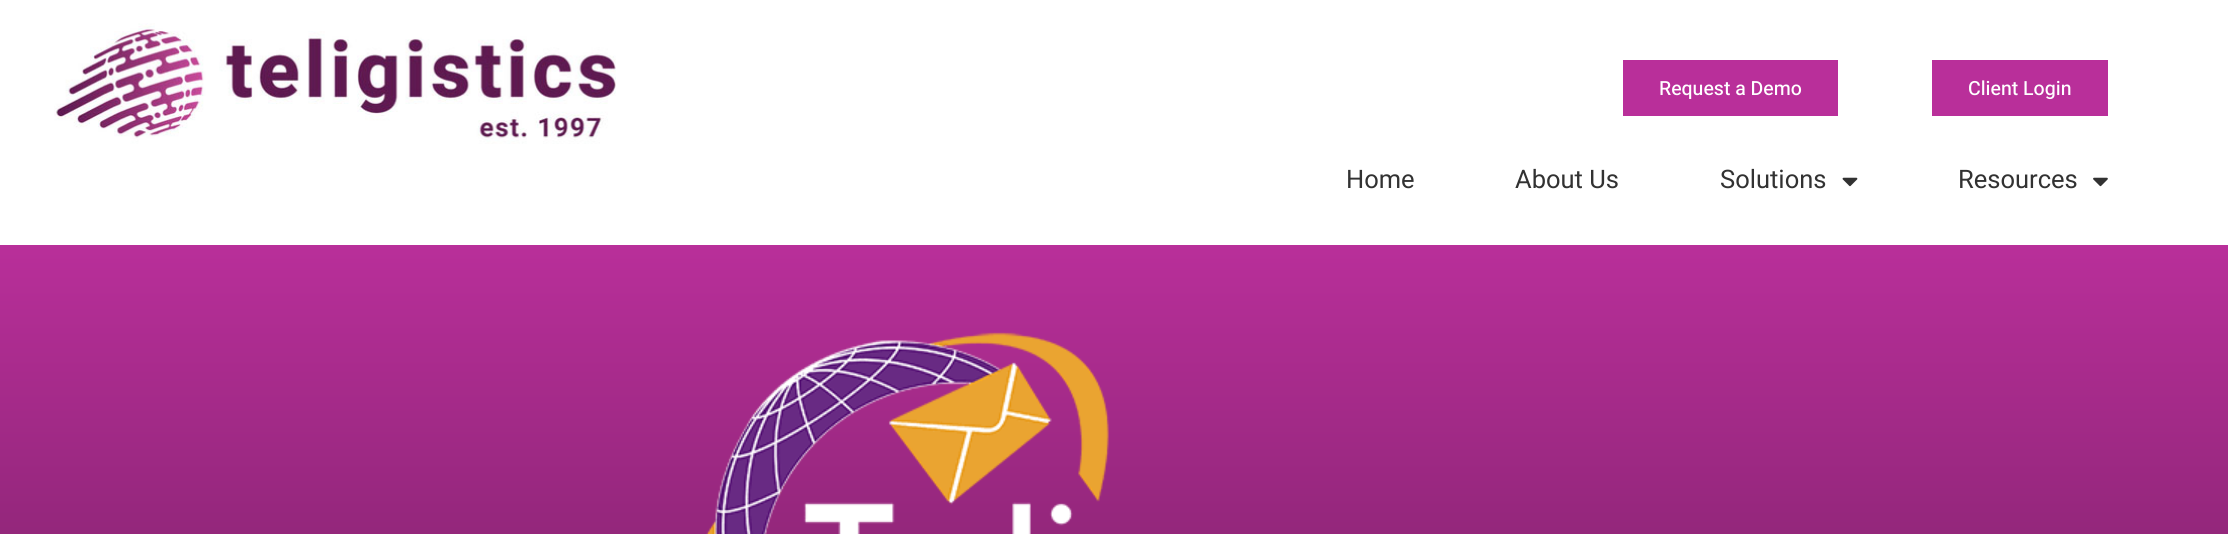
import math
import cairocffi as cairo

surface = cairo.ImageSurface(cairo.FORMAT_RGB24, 2228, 534)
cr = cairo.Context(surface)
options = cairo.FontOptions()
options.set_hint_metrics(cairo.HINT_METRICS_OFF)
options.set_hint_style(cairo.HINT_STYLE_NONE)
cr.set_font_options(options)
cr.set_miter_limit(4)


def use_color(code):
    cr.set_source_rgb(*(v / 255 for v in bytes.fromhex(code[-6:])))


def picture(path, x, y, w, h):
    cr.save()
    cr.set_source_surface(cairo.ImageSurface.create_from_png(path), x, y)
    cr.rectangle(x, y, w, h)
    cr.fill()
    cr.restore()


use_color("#ffffff")
cr.paint()
picture("img1.png", 54, 23, 562, 121)
use_color("#b92f9a")
cr.rectangle(1623, 60, 215, 56)
cr.fill()
cr.select_font_face("Heebo Medium")
cr.set_font_size(19.5)
use_color("#ffffff")
cr.move_to(1659, 95)
cr.show_text("Request a Demo")
use_color("#b92f9a")
cr.rectangle(1932, 60, 176, 56)
cr.fill()
use_color("#ffffff")
cr.move_to(1968, 95)
cr.show_text("Client Login")
cr.select_font_face("Heebo")
cr.set_font_size(25.5)
use_color("#323232")
cr.move_to(1346, 188)
cr.show_text("Home")
cr.move_to(1515, 188)
cr.show_text("About Us")
cr.move_to(1720, 188)
cr.show_text("Solutions")
picture("img2.png", 1842, 177, 16, 10)
cr.move_to(1958, 188)
cr.show_text("Resources")
picture("img3.png", 2093, 177, 15, 10)
gradient = cairo.LinearGradient(1115, 244, 1115, 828)
gradient.add_color_stop_rgba(0, 0.725, 0.184, 0.604, 1)
gradient.add_color_stop_rgba(1, 0.431, 0.118, 0.361, 1)
cr.set_source(gradient)
cr.rectangle(0, 245, 2228, 289)
cr.fill()
picture("img4.png", 706, 332, 403, 202)
surface.write_to_png("result.png")
